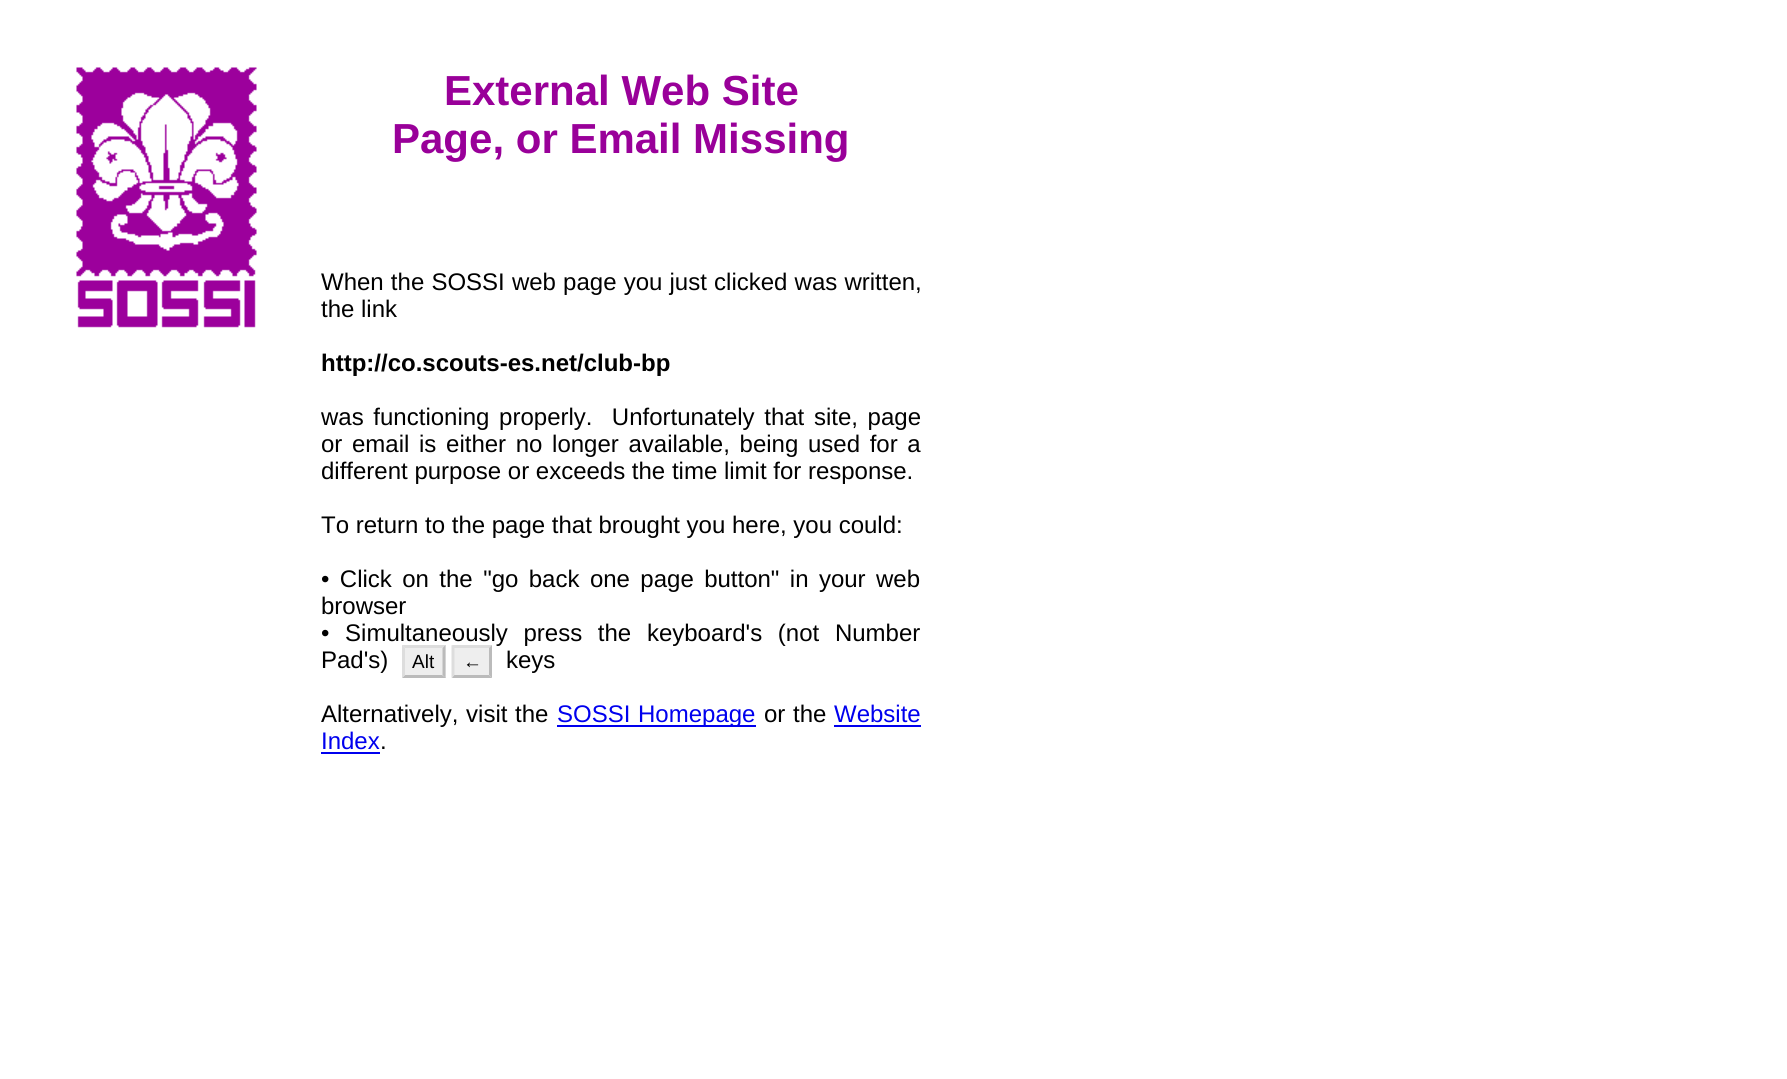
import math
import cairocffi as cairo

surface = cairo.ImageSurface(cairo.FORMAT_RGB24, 1787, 1079)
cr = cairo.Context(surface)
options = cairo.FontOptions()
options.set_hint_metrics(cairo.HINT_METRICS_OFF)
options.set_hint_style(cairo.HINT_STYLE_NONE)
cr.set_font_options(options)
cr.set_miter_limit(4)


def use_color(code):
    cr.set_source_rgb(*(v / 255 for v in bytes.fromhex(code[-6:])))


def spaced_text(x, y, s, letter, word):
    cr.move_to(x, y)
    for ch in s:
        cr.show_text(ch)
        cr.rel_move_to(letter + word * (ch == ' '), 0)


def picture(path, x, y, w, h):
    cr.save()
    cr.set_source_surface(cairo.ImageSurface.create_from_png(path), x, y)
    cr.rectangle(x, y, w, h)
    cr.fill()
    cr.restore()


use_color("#ffffff")
cr.paint()
picture("img1.png", 76, 67, 181, 261)
cr.select_font_face("Liberation Sans", cairo.FONT_SLANT_NORMAL, cairo.FONT_WEIGHT_BOLD)
cr.set_font_size(42)
use_color("#990099")
cr.move_to(444, 105)
cr.show_text("External Web Site")
cr.move_to(392, 153)
cr.show_text("Page, or Email Missing")
cr.select_font_face("Liberation Sans")
cr.set_font_size(24)
use_color("#000000")
spaced_text(321, 290, "When the SOSSI web page you just clicked was written,", 0, 0.5)
cr.move_to(321, 317)
cr.show_text("the link")
cr.select_font_face("Liberation Sans", cairo.FONT_SLANT_NORMAL, cairo.FONT_WEIGHT_BOLD)
cr.move_to(321, 371)
cr.show_text("http://co.scouts-es.net/club-bp")
cr.select_font_face("Liberation Sans")
spaced_text(321, 425, "was functioning properly.  Unfortunately that site, page", 0, 3)
spaced_text(321, 452, "or email is either no longer available, being used for a", 0, 3)
cr.move_to(321, 479)
cr.show_text("different purpose or exceeds the time limit for response.")
cr.move_to(321, 533)
cr.show_text("To return to the page that brought you here, you could:")
spaced_text(321, 587, "• Click on the \"go back one page button\" in your web", 0, 3.75)
cr.move_to(321, 614)
cr.show_text("browser")
spaced_text(321, 641, "• Simultaneously press the keyboard's (not Number", 0, 9)
cr.move_to(321, 668)
cr.show_text("Pad's)")
use_color("#eeeeee")
cr.rectangle(402, 645, 44, 33)
cr.fill()
cr.set_font_size(19)
use_color("#000000")
cr.move_to(412, 668)
cr.show_text("Alt")
use_color("#dddddd")
cr.new_path()
cr.move_to(402, 645)
cr.line_to(446, 645)
cr.line_to(442, 648)
cr.line_to(405, 648)
cr.close_path()
cr.fill()
use_color("#bbbbbb")
cr.new_path()
cr.move_to(445.5, 645)
cr.line_to(445.5, 678)
cr.line_to(442.5, 675)
cr.line_to(442.5, 648)
cr.close_path()
cr.fill()
cr.new_path()
cr.move_to(446, 678)
cr.line_to(402, 678)
cr.line_to(405, 675)
cr.line_to(442, 675)
cr.close_path()
cr.fill()
use_color("#dddddd")
cr.new_path()
cr.move_to(402, 678)
cr.line_to(402, 645)
cr.line_to(405, 648)
cr.line_to(405, 675)
cr.close_path()
cr.fill()
use_color("#eeeeee")
cr.rectangle(452, 645, 40, 33)
cr.fill()
use_color("#000000")
cr.move_to(463, 668)
cr.show_text("←")
use_color("#dddddd")
cr.new_path()
cr.move_to(452, 645)
cr.line_to(492, 645)
cr.line_to(489, 648)
cr.line_to(454, 648)
cr.close_path()
cr.fill()
use_color("#bbbbbb")
cr.new_path()
cr.move_to(492, 645)
cr.line_to(492, 678)
cr.line_to(489, 675)
cr.line_to(489, 648)
cr.close_path()
cr.fill()
cr.new_path()
cr.move_to(492, 678)
cr.line_to(452, 678)
cr.line_to(454, 675)
cr.line_to(489, 675)
cr.close_path()
cr.fill()
use_color("#dddddd")
cr.new_path()
cr.move_to(451.5, 678)
cr.line_to(451.5, 645)
cr.line_to(454.5, 648)
cr.line_to(454.5, 675)
cr.close_path()
cr.fill()
cr.set_font_size(24)
use_color("#000000")
cr.move_to(506, 668)
cr.show_text("keys")
spaced_text(321, 722, "Alternatively, visit the", 0, 1)
use_color("#0000ee")
cr.rectangle(557, 725, 199, 2)
cr.fill()
spaced_text(557, 722, "SOSSI Homepage", 0, 1)
use_color("#000000")
spaced_text(764, 722, "or the", 0, 1)
use_color("#0000ee")
cr.move_to(834, 722)
cr.show_text("Website")
cr.rectangle(834, 725, 87, 2)
cr.fill()
cr.move_to(321, 749)
cr.show_text("Index")
cr.rectangle(321, 752, 59, 2)
cr.fill()
use_color("#000000")
cr.move_to(380, 749)
cr.show_text(".")
surface.write_to_png("result.png")
